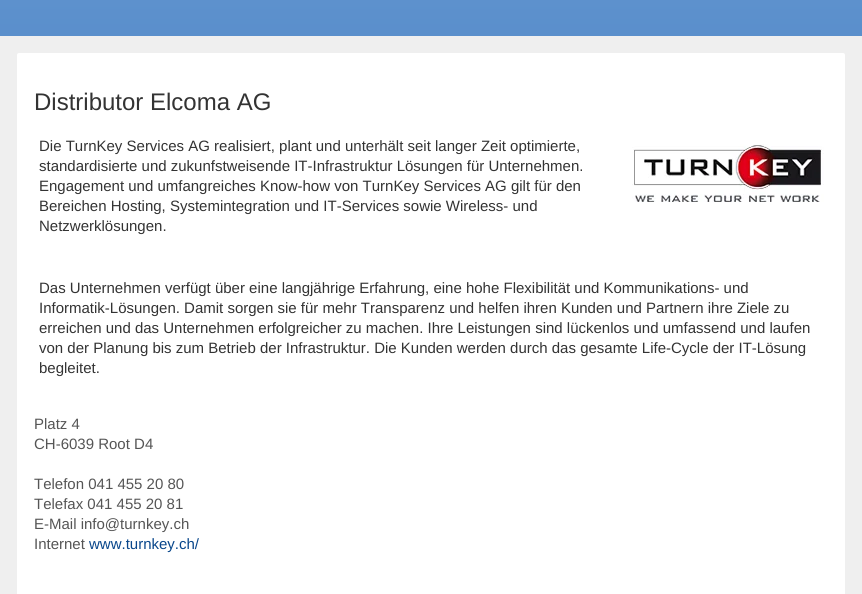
import math
import cairocffi as cairo

surface = cairo.ImageSurface(cairo.FORMAT_RGB24, 862, 594)
cr = cairo.Context(surface)
options = cairo.FontOptions()
options.set_hint_metrics(cairo.HINT_METRICS_OFF)
options.set_hint_style(cairo.HINT_STYLE_NONE)
cr.set_font_options(options)
cr.set_miter_limit(4)


def use_color(code):
    cr.set_source_rgb(*(v / 255 for v in bytes.fromhex(code[-6:])))


def round_rect(x, y, w, h, r):
    cr.new_sub_path()
    for i, (u, v) in enumerate([(x + w - r, y + h - r), (x + r, y + h - r), (x + r, y + r), (x + w - r, y + r)]):
        cr.arc(u, v, r, i * math.pi / 2, (i + 1) * math.pi / 2)
    cr.close_path()


def picture(path, x, y, w, h):
    cr.save()
    cr.set_source_surface(cairo.ImageSurface.create_from_png(path), x, y)
    cr.rectangle(x, y, w, h)
    cr.fill()
    cr.restore()


use_color("#ffffff")
cr.paint()
gradient = cairo.LinearGradient(431, 0, 431, 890)
gradient.add_color_stop_rgba(0, 0.365, 0.569, 0.804, 1)
gradient.add_color_stop_rgba(0.76, 0.141, 0.392, 0.671, 1)
cr.set_source(gradient)
cr.rectangle(0, 0, 862, 36)
cr.fill()
use_color("#efefef")
cr.rectangle(0, 36, 862, 558)
cr.fill()
use_color("#ffffff")
round_rect(17, 53, 828, 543, 2)
cr.fill()
cr.select_font_face("Liberation Sans")
cr.set_font_size(24)
use_color("#333333")
cr.move_to(34, 110)
cr.show_text("Distributor Elcoma AG")
cr.set_font_size(15)
cr.move_to(39, 151)
cr.show_text("Die TurnKey Services AG realisiert, plant und unterhält seit langer Zeit optimierte,")
cr.move_to(39, 171)
cr.show_text("standardisierte und zukunfstweisende IT-Infrastruktur Lösungen für Unternehmen.")
cr.move_to(39, 191)
cr.show_text("Engagement und umfangreiches Know-how von TurnKey Services AG gilt für den")
cr.move_to(39, 211)
cr.show_text("Bereichen Hosting, Systemintegration und IT-Services sowie Wireless- und")
cr.move_to(39, 231)
cr.show_text("Netzwerklösungen.")
cr.move_to(39, 293)
cr.show_text("Das Unternehmen verfügt über eine langjährige Erfahrung, eine hohe Flexibilität und Kommunikations- und")
cr.move_to(39, 313)
cr.show_text("Informatik-Lösungen. Damit sorgen sie für mehr Transparenz und helfen ihren Kunden und Partnern ihre Ziele zu")
cr.move_to(39, 333)
cr.show_text("erreichen und das Unternehmen erfolgreicher zu machen. Ihre Leistungen sind lückenlos und umfassend und laufen")
cr.move_to(39, 353)
cr.show_text("von der Planung bis zum Betrieb der Infrastruktur. Die Kunden werden durch das gesamte Life-Cycle der IT-Lösung")
cr.move_to(39, 373)
cr.show_text("begleitet.")
use_color("#555555")
cr.move_to(34, 429)
cr.show_text("Platz 4")
cr.move_to(34, 449)
cr.show_text("CH-6039 Root D4")
cr.move_to(34, 489)
cr.show_text("Telefon 041 455 20 80")
cr.move_to(34, 509)
cr.show_text("Telefax 041 455 20 81")
cr.move_to(34, 529)
cr.show_text("E-Mail info@turnkey.ch")
cr.move_to(34, 549)
cr.show_text("Internet")
use_color("#08468b")
cr.move_to(89, 549)
cr.show_text("www.turnkey.ch/")
picture("img1.png", 632, 144, 192, 58)
surface.write_to_png("result.png")
